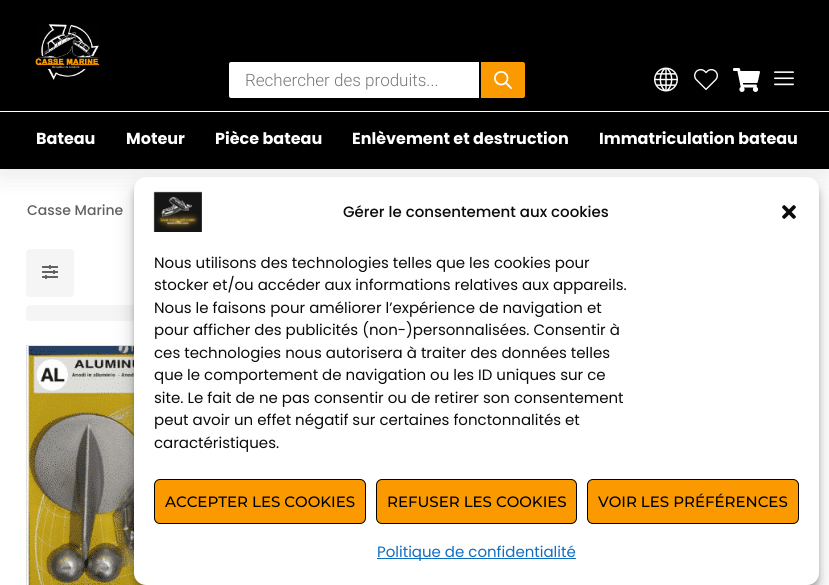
import math
import cairocffi as cairo

surface = cairo.ImageSurface(cairo.FORMAT_RGB24, 829, 585)
cr = cairo.Context(surface)
options = cairo.FontOptions()
options.set_hint_metrics(cairo.HINT_METRICS_OFF)
options.set_hint_style(cairo.HINT_STYLE_NONE)
cr.set_font_options(options)
cr.set_miter_limit(4)


def use_color(code):
    cr.set_source_rgb(*(v / 255 for v in bytes.fromhex(code[-6:])))


def round_rect(x, y, w, h, r):
    cr.new_sub_path()
    for i, (u, v) in enumerate([(x + w - r, y + h - r), (x + r, y + h - r), (x + r, y + r), (x + w - r, y + r)]):
        cr.arc(u, v, r, i * math.pi / 2, (i + 1) * math.pi / 2)
    cr.close_path()


def shadow(x, y, w, h, r, blur, alpha):
    cr.push_group_with_content(cairo.CONTENT_ALPHA)
    cr.set_operator(cairo.OPERATOR_SOURCE)
    for i in range(15, -16, -2):
        e = blur * i / 6
        if min(w, h) + 2 * e > 0:
            cr.set_source_rgba(0, 0, 0, alpha * math.erfc((i - 1) / 8.5) / 2)
            round_rect(x - e, y - e, w + 2 * e, h + 2 * e, max(0, min(r + e + blur * .6, min(w, h) / 2 + e)))
            cr.fill()
    cr.mask(cr.pop_group())


def picture(path, x, y, w, h):
    cr.save()
    cr.set_source_surface(cairo.ImageSurface.create_from_png(path), x, y)
    cr.rectangle(x, y, w, h)
    cr.fill()
    cr.restore()


use_color("#ffffff")
cr.paint()
use_color("#000000")
shadow(0, 8, 829, 169, 0, 12, 0.08)
use_color("#000000")
cr.rectangle(0, 0, 829, 121)
cr.fill()
picture("img1.png", 35, 24, 65, 56)
use_color("#ffffff")
round_rect(228, 61, 298, 38, 3)
cr.fill_preserve()
use_color("#000000")
cr.stroke()
cr.select_font_face("Roboto Light")
cr.set_font_size(17)
use_color("#777777")
cr.move_to(245, 86)
cr.show_text("Rechercher des produits...")
use_color("#fa9a00")
cr.new_path()
cr.move_to(480, 61)
cr.line_to(523, 61)
cr.curve_to(524.5, 61, 526, 62.5, 526, 64)
cr.line_to(526, 96)
cr.curve_to(526, 97.5, 524.5, 99, 523, 99)
cr.line_to(480, 99)
cr.close_path()
cr.fill_preserve()
use_color("#000000")
cr.stroke()
picture("img2.png", 494, 71, 18, 18)
picture("img3.png", 654, 67, 24, 25)
picture("img4.png", 694, 69, 24, 21)
picture("img5.png", 733, 68, 27, 24)
picture("img6.png", 774, 71, 20, 15)
use_color("#ffffff")
cr.rectangle(0, 111, 829, 1)
cr.fill()
use_color("#000000")
cr.rectangle(0, 121, 829, 48)
cr.fill()
cr.select_font_face("Poppins", cairo.FONT_SLANT_NORMAL, cairo.FONT_WEIGHT_BOLD)
cr.set_font_size(16)
use_color("#ffffff")
cr.move_to(36, 144)
cr.show_text("Bateau")
cr.move_to(126, 144)
cr.show_text("Moteur")
cr.move_to(215, 144)
cr.show_text("Pièce bateau")
cr.move_to(352, 144)
cr.show_text("Enlèvement et destruction")
cr.move_to(599, 144)
cr.show_text("Immatriculation bateau")
cr.select_font_face("Poppins Medium")
cr.set_font_size(14)
use_color("#616161")
cr.move_to(27, 215)
cr.show_text("Casse Marine")
use_color("#f5f5f5")
round_rect(26, 249, 48, 48, 4)
cr.fill()
picture("img7.png", 42, 265, 16, 14)
round_rect(26, 305, 777, 16, 4)
cr.fill()
cr.rectangle(26.5, 345.5, 242, 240)
use_color("#e0e0e0")
cr.set_line_width(1)
cr.stroke()
picture("img8.png", 27, 346, 119, 239)
use_color("#000000")
shadow(134, 183, 685, 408, 12, 3, 0.23)
shadow(134, 187, 685, 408, 12, 10, 0.19)
use_color("#ffffff")
round_rect(134, 177, 685, 408, 12)
cr.fill()
picture("img9.png", 153, 191, 49, 41)
cr.set_font_size(15)
use_color("#0a0a0a")
cr.move_to(343, 217)
cr.show_text("Gérer le consentement aux cookies")
picture("img10.png", 782, 205, 14, 14)
cr.select_font_face("Poppins")
cr.move_to(154, 268)
cr.show_text("Nous utilisons des technologies telles que les cookies pour")
cr.move_to(154, 290)
cr.show_text("stocker et/ou accéder aux informations relatives aux appareils.")
cr.move_to(154, 313)
cr.show_text("Nous le faisons pour améliorer l’expérience de navigation et")
cr.move_to(154, 335)
cr.show_text("pour afficher des publicités (non-)personnalisées. Consentir à")
cr.move_to(154, 358)
cr.show_text("ces technologies nous autorisera à traiter des données telles")
cr.move_to(154, 380)
cr.show_text("que le comportement de navigation ou les ID uniques sur ce")
cr.move_to(154, 403)
cr.show_text("site. Le fait de ne pas consentir ou de retirer son consentement")
cr.move_to(154, 425)
cr.show_text("peut avoir un effet négatif sur certaines fonctonnalités et")
cr.move_to(154, 448)
cr.show_text("caractéristiques.")
use_color("#fa9a00")
round_rect(154.5, 479.5, 211, 44, 5.5)
cr.fill_preserve()
use_color("#000000")
cr.stroke()
cr.select_font_face("Montserrat Medium")
cr.move_to(165, 507)
cr.show_text("ACCEPTER LES COOKIES")
use_color("#fa9a00")
round_rect(376.5, 479.5, 200, 44, 5.5)
cr.fill_preserve()
use_color("#000000")
cr.stroke()
cr.move_to(387, 507)
cr.show_text("REFUSER LES COOKIES")
use_color("#fa9a00")
round_rect(587.5, 479.5, 211, 44, 5.5)
cr.fill_preserve()
use_color("#000000")
cr.stroke()
cr.move_to(598, 507)
cr.show_text("VOIR LES PRÉFÉRENCES")
use_color("#0f6dbf")
cr.rectangle(377, 558, 199, 1)
cr.fill()
cr.select_font_face("Poppins")
cr.move_to(377, 557)
cr.show_text("Politique de confidentialité")
surface.write_to_png("result.png")
